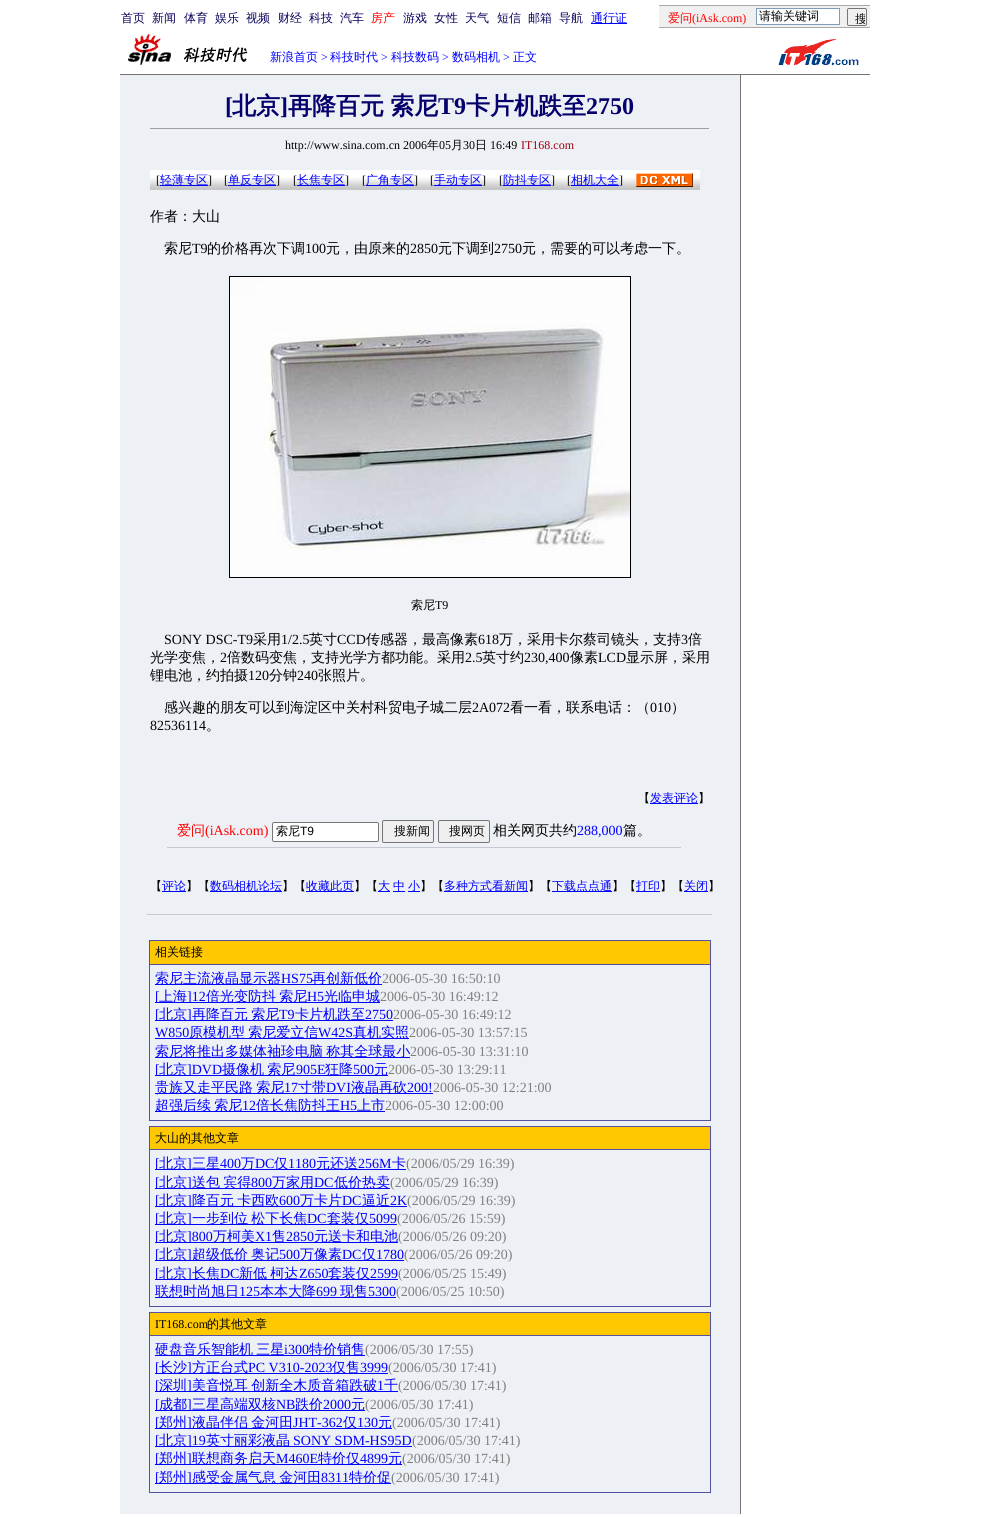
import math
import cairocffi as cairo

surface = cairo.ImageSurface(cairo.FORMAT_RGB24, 989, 1517)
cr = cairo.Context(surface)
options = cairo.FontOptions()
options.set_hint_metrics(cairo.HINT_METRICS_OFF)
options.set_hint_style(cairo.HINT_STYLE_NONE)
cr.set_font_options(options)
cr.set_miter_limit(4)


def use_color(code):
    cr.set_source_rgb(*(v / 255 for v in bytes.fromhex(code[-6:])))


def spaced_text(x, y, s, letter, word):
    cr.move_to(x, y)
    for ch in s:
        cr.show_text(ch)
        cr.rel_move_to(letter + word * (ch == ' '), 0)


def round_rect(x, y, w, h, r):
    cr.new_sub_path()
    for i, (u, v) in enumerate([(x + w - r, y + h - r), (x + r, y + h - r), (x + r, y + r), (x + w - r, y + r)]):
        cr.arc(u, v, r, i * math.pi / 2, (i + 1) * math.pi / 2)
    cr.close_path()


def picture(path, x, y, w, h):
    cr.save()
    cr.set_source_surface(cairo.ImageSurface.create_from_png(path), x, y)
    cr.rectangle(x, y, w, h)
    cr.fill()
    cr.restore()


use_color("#ffffff")
cr.paint()
cr.select_font_face("WenQuanYi Zen Hei Medium")
cr.set_font_size(12)
use_color("#07015b")
cr.move_to(121, 22)
cr.show_text("首页")
cr.move_to(152, 22)
cr.show_text("新闻")
cr.move_to(184, 22)
cr.show_text("体育")
cr.move_to(215, 22)
cr.show_text("娱乐")
cr.move_to(246, 22)
cr.show_text("视频")
cr.move_to(278, 22)
cr.show_text("财经")
cr.move_to(309, 22)
cr.show_text("科技")
cr.move_to(340, 22)
cr.show_text("汽车")
use_color("#ff0000")
cr.move_to(371, 22)
cr.show_text("房产")
use_color("#07015b")
cr.move_to(403, 22)
cr.show_text("游戏")
cr.move_to(434, 22)
cr.show_text("女性")
cr.move_to(465, 22)
cr.show_text("天气")
cr.move_to(497, 22)
cr.show_text("短信")
cr.move_to(528, 22)
cr.show_text("邮箱")
cr.move_to(559, 22)
cr.show_text("导航")
use_color("#0000ff")
cr.rectangle(591, 23, 36, 1)
cr.fill()
cr.move_to(591, 22)
cr.show_text("通行证")
use_color("#a9a9a9")
cr.rectangle(659, 5, 211, 1)
cr.fill()
use_color("#f0f0f0")
cr.rectangle(659, 6, 211, 21)
cr.fill()
use_color("#ff0000")
cr.move_to(668, 22)
cr.show_text("爱问")
cr.select_font_face("Liberation Serif")
cr.move_to(692, 22)
cr.show_text("(iAsk.com)")
use_color("#ffffff")
cr.rectangle(756.5, 8.5, 83, 16)
cr.fill_preserve()
use_color("#7f9db9")
cr.set_line_width(1)
cr.stroke()
cr.select_font_face("WenQuanYi Zen Hei Medium")
use_color("#000000")
cr.move_to(759, 20)
cr.show_text("请输关键词")
round_rect(847.5, 8.5, 19, 17, 1.5)
use_color("#767676")
cr.stroke()
cr.save()
cr.rectangle(849, 10, 16, 14)
cr.clip()
use_color("#000000")
cr.move_to(855, 23)
cr.show_text("搜")
cr.restore()
use_color("#a9a9a9")
cr.rectangle(659, 27, 211, 1)
cr.fill()
picture("img1.png", 128, 34, 120, 32)
use_color("#0000ff")
cr.move_to(270, 61)
cr.show_text("新浪首页")
cr.select_font_face("Liberation Serif")
cr.move_to(321, 61)
cr.show_text(">")
cr.select_font_face("WenQuanYi Zen Hei Medium")
cr.move_to(330, 61)
cr.show_text("科技时代")
cr.select_font_face("Liberation Serif")
cr.move_to(381, 61)
cr.show_text(">")
cr.select_font_face("WenQuanYi Zen Hei Medium")
cr.move_to(391, 61)
cr.show_text("科技数码")
cr.select_font_face("Liberation Serif")
cr.move_to(442, 61)
cr.show_text(">")
cr.select_font_face("WenQuanYi Zen Hei Medium")
cr.move_to(452, 61)
cr.show_text("数码相机")
cr.select_font_face("Liberation Serif")
cr.move_to(503, 61)
cr.show_text(">")
cr.select_font_face("WenQuanYi Zen Hei Medium")
cr.move_to(513, 61)
cr.show_text("正文")
picture("img2.png", 778, 39, 81, 27)
use_color("#747474")
cr.rectangle(120, 74, 750, 1)
cr.fill()
use_color("#edf0f5")
cr.rectangle(120, 75, 620, 1439)
cr.fill()
cr.select_font_face("Liberation Serif", cairo.FONT_SLANT_NORMAL, cairo.FONT_WEIGHT_BOLD)
cr.set_font_size(24)
use_color("#05006c")
cr.move_to(225, 114)
cr.show_text("[")
cr.select_font_face("WenQuanYi Zen Hei", cairo.FONT_SLANT_NORMAL, cairo.FONT_WEIGHT_BOLD)
cr.move_to(232, 114)
cr.show_text("北京")
cr.select_font_face("Liberation Serif", cairo.FONT_SLANT_NORMAL, cairo.FONT_WEIGHT_BOLD)
cr.move_to(280, 114)
cr.show_text("]")
cr.select_font_face("WenQuanYi Zen Hei", cairo.FONT_SLANT_NORMAL, cairo.FONT_WEIGHT_BOLD)
spaced_text(288, 114, "再降百元 索尼", 0, -1)
cr.select_font_face("Liberation Serif", cairo.FONT_SLANT_NORMAL, cairo.FONT_WEIGHT_BOLD)
cr.move_to(438, 114)
cr.show_text("T9")
cr.select_font_face("WenQuanYi Zen Hei", cairo.FONT_SLANT_NORMAL, cairo.FONT_WEIGHT_BOLD)
cr.move_to(466, 114)
cr.show_text("卡片机跌至")
cr.select_font_face("Liberation Serif", cairo.FONT_SLANT_NORMAL, cairo.FONT_WEIGHT_BOLD)
cr.move_to(586, 114)
cr.show_text("2750")
use_color("#9f9f9f")
cr.rectangle(150, 128, 560, 1)
cr.fill()
use_color("#eeeeee")
cr.rectangle(709, 128, 1, 1)
cr.fill()
cr.select_font_face("Liberation Serif")
cr.set_font_size(12)
use_color("#000000")
cr.move_to(285, 149)
cr.show_text("http://www.sina.com.cn 2006")
cr.select_font_face("WenQuanYi Zen Hei Medium")
cr.move_to(427, 149)
cr.show_text("年")
cr.select_font_face("Liberation Serif")
cr.move_to(439, 149)
cr.show_text("05")
cr.select_font_face("WenQuanYi Zen Hei Medium")
cr.move_to(451, 149)
cr.show_text("月")
cr.select_font_face("Liberation Serif")
cr.move_to(463, 149)
cr.show_text("30")
cr.select_font_face("WenQuanYi Zen Hei Medium")
cr.move_to(475, 149)
cr.show_text("日")
cr.select_font_face("Liberation Serif")
cr.move_to(490, 149)
cr.show_text("16:49")
use_color("#a20010")
cr.move_to(521, 149)
cr.show_text("IT168.com")
picture("img3.png", 150, 170, 550, 20)
use_color("#000000")
cr.move_to(156, 184)
cr.show_text("[")
use_color("#0000ff")
cr.rectangle(160, 185, 48, 1)
cr.fill()
cr.select_font_face("WenQuanYi Zen Hei Medium")
cr.move_to(160, 184)
cr.show_text("轻薄专区")
cr.select_font_face("Liberation Serif")
use_color("#000000")
cr.move_to(208, 184)
cr.show_text("]")
cr.move_to(224, 184)
cr.show_text("[")
use_color("#0000ff")
cr.rectangle(228, 185, 48, 1)
cr.fill()
cr.select_font_face("WenQuanYi Zen Hei Medium")
cr.move_to(228, 184)
cr.show_text("单反专区")
cr.select_font_face("Liberation Serif")
use_color("#000000")
cr.move_to(276, 184)
cr.show_text("]")
cr.move_to(293, 184)
cr.show_text("[")
use_color("#0000ff")
cr.rectangle(297, 185, 48, 1)
cr.fill()
cr.select_font_face("WenQuanYi Zen Hei Medium")
cr.move_to(297, 184)
cr.show_text("长焦专区")
cr.select_font_face("Liberation Serif")
use_color("#000000")
cr.move_to(345, 184)
cr.show_text("]")
cr.move_to(362, 184)
cr.show_text("[")
use_color("#0000ff")
cr.rectangle(366, 185, 48, 1)
cr.fill()
cr.select_font_face("WenQuanYi Zen Hei Medium")
cr.move_to(366, 184)
cr.show_text("广角专区")
cr.select_font_face("Liberation Serif")
use_color("#000000")
cr.move_to(414, 184)
cr.show_text("]")
cr.move_to(430, 184)
cr.show_text("[")
use_color("#0000ff")
cr.rectangle(434, 185, 48, 1)
cr.fill()
cr.select_font_face("WenQuanYi Zen Hei Medium")
cr.move_to(434, 184)
cr.show_text("手动专区")
cr.select_font_face("Liberation Serif")
use_color("#000000")
cr.move_to(482, 184)
cr.show_text("]")
cr.move_to(499, 184)
cr.show_text("[")
use_color("#0000ff")
cr.rectangle(503, 185, 48, 1)
cr.fill()
cr.select_font_face("WenQuanYi Zen Hei Medium")
cr.move_to(503, 184)
cr.show_text("防抖专区")
cr.select_font_face("Liberation Serif")
use_color("#000000")
cr.move_to(551, 184)
cr.show_text("]")
cr.move_to(567, 184)
cr.show_text("[")
use_color("#0000ff")
cr.rectangle(571, 185, 48, 1)
cr.fill()
cr.select_font_face("WenQuanYi Zen Hei Medium")
cr.move_to(571, 184)
cr.show_text("相机大全")
cr.select_font_face("Liberation Serif")
use_color("#000000")
cr.move_to(619, 184)
cr.show_text("]")
picture("img4.png", 636, 173, 57, 14)
cr.select_font_face("WenQuanYi Zen Hei Medium")
cr.set_font_size(14)
cr.move_to(150, 221)
cr.show_text("作者：大山")
cr.move_to(164, 253)
cr.show_text("索尼")
cr.select_font_face("Liberation Serif")
cr.move_to(192, 253)
cr.show_text("T9")
cr.select_font_face("WenQuanYi Zen Hei Medium")
cr.move_to(207, 253)
cr.show_text("的价格再次下调")
cr.select_font_face("Liberation Serif")
cr.move_to(305, 253)
cr.show_text("100")
cr.select_font_face("WenQuanYi Zen Hei Medium")
cr.move_to(326, 253)
cr.show_text("元，由原来的")
cr.select_font_face("Liberation Serif")
cr.move_to(410, 253)
cr.show_text("2850")
cr.select_font_face("WenQuanYi Zen Hei Medium")
cr.move_to(438, 253)
cr.show_text("元下调到")
cr.select_font_face("Liberation Serif")
cr.move_to(494, 253)
cr.show_text("2750")
cr.select_font_face("WenQuanYi Zen Hei Medium")
cr.move_to(522, 253)
cr.show_text("元，需要的可以考虑一下。")
cr.rectangle(229.5, 276.5, 401, 301)
cr.stroke()
picture("img5.png", 230, 277, 400, 300)
cr.set_font_size(12)
cr.move_to(411, 609)
cr.show_text("索尼")
cr.select_font_face("Liberation Serif")
cr.move_to(435, 609)
cr.show_text("T9")
cr.set_font_size(14)
cr.move_to(164, 644)
cr.show_text("SONY DSC-T9")
cr.select_font_face("WenQuanYi Zen Hei Medium")
cr.move_to(253, 644)
cr.show_text("采用")
cr.select_font_face("Liberation Serif")
cr.move_to(281, 644)
cr.show_text("1/2.5")
cr.select_font_face("WenQuanYi Zen Hei Medium")
cr.move_to(309, 644)
cr.show_text("英寸")
cr.select_font_face("Liberation Serif")
cr.move_to(337, 644)
cr.show_text("CCD")
cr.select_font_face("WenQuanYi Zen Hei Medium")
cr.move_to(366, 644)
cr.show_text("传感器，最高像素")
cr.select_font_face("Liberation Serif")
cr.move_to(478, 644)
cr.show_text("618")
cr.select_font_face("WenQuanYi Zen Hei Medium")
cr.move_to(499, 644)
cr.show_text("万，采用卡尔蔡司镜头，支持")
cr.select_font_face("Liberation Serif")
cr.move_to(681, 644)
cr.show_text("3")
cr.select_font_face("WenQuanYi Zen Hei Medium")
cr.move_to(688, 644)
cr.show_text("倍")
cr.move_to(150, 662)
cr.show_text("光学变焦，")
cr.select_font_face("Liberation Serif")
cr.move_to(220, 662)
cr.show_text("2")
cr.select_font_face("WenQuanYi Zen Hei Medium")
cr.move_to(227, 662)
cr.show_text("倍数码变焦，支持光学方都功能。采用")
cr.select_font_face("Liberation Serif")
cr.move_to(465, 662)
cr.show_text("2.5")
cr.select_font_face("WenQuanYi Zen Hei Medium")
cr.move_to(482, 662)
cr.show_text("英寸约")
cr.select_font_face("Liberation Serif")
cr.move_to(524, 662)
cr.show_text("230,400")
cr.select_font_face("WenQuanYi Zen Hei Medium")
cr.move_to(570, 662)
cr.show_text("像素")
cr.select_font_face("Liberation Serif")
cr.move_to(598, 662)
cr.show_text("LCD")
cr.select_font_face("WenQuanYi Zen Hei Medium")
cr.move_to(626, 662)
cr.show_text("显示屏，采用")
cr.move_to(150, 680)
cr.show_text("锂电池，约拍摄")
cr.select_font_face("Liberation Serif")
cr.move_to(248, 680)
cr.show_text("120")
cr.select_font_face("WenQuanYi Zen Hei Medium")
cr.move_to(269, 680)
cr.show_text("分钟")
cr.select_font_face("Liberation Serif")
cr.move_to(297, 680)
cr.show_text("240")
cr.select_font_face("WenQuanYi Zen Hei Medium")
cr.move_to(318, 680)
cr.show_text("张照片。")
cr.move_to(164, 712)
cr.show_text("感兴趣的朋友可以到海淀区中关村科贸电子城二层")
cr.select_font_face("Liberation Serif")
cr.move_to(472, 712)
cr.show_text("2A072")
cr.select_font_face("WenQuanYi Zen Hei Medium")
cr.move_to(510, 712)
cr.show_text("看一看，联系电话：（")
cr.select_font_face("Liberation Serif")
cr.move_to(650, 712)
cr.show_text("010")
cr.select_font_face("WenQuanYi Zen Hei Medium")
cr.move_to(671, 712)
cr.show_text("）")
cr.select_font_face("Liberation Serif")
cr.move_to(150, 730)
cr.show_text("82536114")
cr.select_font_face("WenQuanYi Zen Hei Medium")
cr.move_to(206, 730)
cr.show_text("。")
cr.set_font_size(12)
cr.move_to(638, 802)
cr.show_text("【")
use_color("#0000ff")
cr.rectangle(650, 803, 48, 1)
cr.fill()
cr.move_to(650, 802)
cr.show_text("发表评论")
use_color("#000000")
cr.move_to(698, 802)
cr.show_text("】")
use_color("#c6c9d1")
cr.rectangle(167, 847, 514, 1)
cr.fill()
cr.set_font_size(14)
use_color("#ff0000")
cr.move_to(177, 835)
cr.show_text("爱问")
cr.select_font_face("Liberation Serif")
cr.move_to(205, 835)
cr.show_text("(iAsk.com)")
use_color("#ffffff")
round_rect(272.5, 822.5, 106, 19, 1.5)
cr.fill_preserve()
use_color("#767676")
cr.stroke()
cr.select_font_face("WenQuanYi Zen Hei Medium")
cr.set_font_size(12)
use_color("#000000")
cr.move_to(276, 835)
cr.show_text("索尼")
cr.select_font_face("Liberation Sans")
cr.move_to(300, 835)
cr.show_text("T9")
use_color("#efefef")
round_rect(382.5, 820.5, 51, 22, 1.5)
cr.fill_preserve()
use_color("#767676")
cr.stroke()
cr.select_font_face("WenQuanYi Zen Hei Medium")
use_color("#000000")
cr.move_to(394, 835)
cr.show_text("搜新闻")
use_color("#efefef")
round_rect(438.5, 820.5, 51, 22, 1.5)
cr.fill_preserve()
use_color("#767676")
cr.stroke()
use_color("#000000")
cr.move_to(449, 835)
cr.show_text("搜网页")
cr.set_font_size(14)
cr.move_to(493, 835)
cr.show_text("相关网页共约")
cr.select_font_face("Liberation Serif")
use_color("#0000ff")
cr.move_to(577, 835)
cr.show_text("288,000")
cr.select_font_face("WenQuanYi Zen Hei Medium")
use_color("#000000")
cr.move_to(623, 835)
cr.show_text("篇。")
cr.set_font_size(12)
cr.move_to(150, 890)
cr.show_text("【")
use_color("#0000ff")
cr.rectangle(162, 891, 24, 1)
cr.fill()
cr.move_to(162, 890)
cr.show_text("评论")
use_color("#000000")
cr.move_to(186, 890)
cr.show_text("】【")
use_color("#0000ff")
cr.rectangle(210, 891, 72, 1)
cr.fill()
cr.move_to(210, 890)
cr.show_text("数码相机论坛")
use_color("#000000")
cr.move_to(282, 890)
cr.show_text("】【")
use_color("#0000ff")
cr.rectangle(306, 891, 48, 1)
cr.fill()
cr.move_to(306, 890)
cr.show_text("收藏此页")
use_color("#000000")
cr.move_to(354, 890)
cr.show_text("】【")
use_color("#0000ff")
cr.rectangle(378, 891, 12, 1)
cr.fill()
cr.move_to(378, 890)
cr.show_text("大")
cr.rectangle(393, 891, 12, 1)
cr.fill()
cr.move_to(393, 890)
cr.show_text("中")
cr.rectangle(408, 891, 12, 1)
cr.fill()
cr.move_to(408, 890)
cr.show_text("小")
use_color("#000000")
cr.move_to(420, 890)
cr.show_text("】【")
use_color("#0000ff")
cr.rectangle(444, 891, 84, 1)
cr.fill()
cr.move_to(444, 890)
cr.show_text("多种方式看新闻")
use_color("#000000")
cr.move_to(528, 890)
cr.show_text("】【")
use_color("#0000ff")
cr.rectangle(552, 891, 60, 1)
cr.fill()
cr.move_to(552, 890)
cr.show_text("下载点点通")
use_color("#000000")
cr.move_to(612, 890)
cr.show_text("】【")
use_color("#0000ff")
cr.rectangle(636, 891, 24, 1)
cr.fill()
cr.move_to(636, 890)
cr.show_text("打印")
use_color("#000000")
cr.move_to(660, 890)
cr.show_text("】【")
use_color("#0000ff")
cr.rectangle(684, 891, 24, 1)
cr.fill()
cr.move_to(684, 890)
cr.show_text("关闭")
use_color("#000000")
cr.move_to(708, 890)
cr.show_text("】")
use_color("#c6c9d1")
cr.rectangle(147, 914, 565, 1)
cr.fill()
use_color("#5550a2")
cr.rectangle(149, 940, 562, 181)
cr.fill()
use_color("#ffc800")
cr.rectangle(150, 941, 560, 23)
cr.fill()
use_color("#000000")
cr.move_to(155, 956)
cr.show_text("相关链接")
use_color("#edf0f5")
cr.rectangle(150, 965, 560, 155)
cr.fill()
use_color("#0000ff")
cr.rectangle(155, 984, 227, 1)
cr.fill()
cr.set_font_size(14)
cr.move_to(155, 983)
cr.show_text("索尼主流液晶显示器")
cr.select_font_face("Liberation Serif")
cr.move_to(281, 983)
cr.show_text("HS75")
cr.select_font_face("WenQuanYi Zen Hei Medium")
cr.move_to(312, 983)
cr.show_text("再创新低价")
cr.select_font_face("Liberation Serif")
use_color("#808080")
cr.move_to(382, 983)
cr.show_text("2006-05-30 16:50:10")
use_color("#0000ff")
cr.rectangle(155, 1002, 225, 1)
cr.fill()
cr.move_to(155, 1001)
cr.show_text("[")
cr.select_font_face("WenQuanYi Zen Hei Medium")
cr.move_to(159, 1001)
cr.show_text("上海")
cr.select_font_face("Liberation Serif")
cr.move_to(187, 1001)
cr.show_text("]12")
cr.select_font_face("WenQuanYi Zen Hei Medium")
spaced_text(206, 1001, "倍光变防抖 索尼", 0, -1)
cr.select_font_face("Liberation Serif")
cr.move_to(307, 1001)
cr.show_text("H5")
cr.select_font_face("WenQuanYi Zen Hei Medium")
cr.move_to(324, 1001)
cr.show_text("光临申城")
cr.select_font_face("Liberation Serif")
use_color("#808080")
cr.move_to(380, 1001)
cr.show_text("2006-05-30 16:49:12")
use_color("#0000ff")
cr.rectangle(155, 1020, 238, 1)
cr.fill()
cr.move_to(155, 1019)
cr.show_text("[")
cr.select_font_face("WenQuanYi Zen Hei Medium")
cr.move_to(159, 1019)
cr.show_text("北京")
cr.select_font_face("Liberation Serif")
cr.move_to(187, 1019)
cr.show_text("]")
cr.select_font_face("WenQuanYi Zen Hei Medium")
spaced_text(192, 1019, "再降百元 索尼", 0, -1)
cr.select_font_face("Liberation Serif")
cr.move_to(279, 1019)
cr.show_text("T9")
cr.select_font_face("WenQuanYi Zen Hei Medium")
cr.move_to(295, 1019)
cr.show_text("卡片机跌至")
cr.select_font_face("Liberation Serif")
cr.move_to(365, 1019)
cr.show_text("2750")
use_color("#808080")
cr.move_to(393, 1019)
cr.show_text("2006-05-30 16:49:12")
use_color("#0000ff")
cr.move_to(155, 1037)
cr.show_text("W850")
cr.rectangle(155, 1038, 254, 1)
cr.fill()
cr.select_font_face("WenQuanYi Zen Hei Medium")
spaced_text(189, 1037, "原模机型 索尼爱立信", 0, -1)
cr.select_font_face("Liberation Serif")
cr.move_to(318, 1037)
cr.show_text("W42S")
cr.select_font_face("WenQuanYi Zen Hei Medium")
cr.move_to(353, 1037)
cr.show_text("真机实照")
cr.select_font_face("Liberation Serif")
use_color("#808080")
cr.move_to(409, 1037)
cr.show_text("2006-05-30 13:57:15")
use_color("#0000ff")
cr.rectangle(155, 1057, 255, 1)
cr.fill()
cr.select_font_face("WenQuanYi Zen Hei Medium")
spaced_text(155, 1056, "索尼将推出多媒体袖珍电脑 称其全球最小", 0, -1)
cr.select_font_face("Liberation Serif")
use_color("#808080")
cr.move_to(410, 1056)
cr.show_text("2006-05-30 13:31:10")
use_color("#0000ff")
cr.rectangle(155, 1075, 233, 1)
cr.fill()
cr.move_to(155, 1074)
cr.show_text("[")
cr.select_font_face("WenQuanYi Zen Hei Medium")
cr.move_to(159, 1074)
cr.show_text("北京")
cr.select_font_face("Liberation Serif")
cr.move_to(187, 1074)
cr.show_text("]DVD")
cr.select_font_face("WenQuanYi Zen Hei Medium")
spaced_text(222, 1074, "摄像机 索尼", 0, -1)
cr.select_font_face("Liberation Serif")
cr.move_to(296, 1074)
cr.show_text("905E")
cr.select_font_face("WenQuanYi Zen Hei Medium")
cr.move_to(325, 1074)
cr.show_text("狂降")
cr.select_font_face("Liberation Serif")
cr.move_to(353, 1074)
cr.show_text("500")
cr.select_font_face("WenQuanYi Zen Hei Medium")
cr.move_to(374, 1074)
cr.show_text("元")
cr.select_font_face("Liberation Serif")
use_color("#808080")
cr.move_to(388, 1074)
cr.show_text("2006-05-30 13:29:11")
use_color("#0000ff")
cr.rectangle(155, 1093, 278, 1)
cr.fill()
cr.select_font_face("WenQuanYi Zen Hei Medium")
spaced_text(155, 1092, "贵族又走平民路 索尼", 0, -1)
cr.select_font_face("Liberation Serif")
cr.move_to(284, 1092)
cr.show_text("17")
cr.select_font_face("WenQuanYi Zen Hei Medium")
cr.move_to(298, 1092)
cr.show_text("寸带")
cr.select_font_face("Liberation Serif")
cr.move_to(326, 1092)
cr.show_text("DVI")
cr.select_font_face("WenQuanYi Zen Hei Medium")
cr.move_to(351, 1092)
cr.show_text("液晶再砍")
cr.select_font_face("Liberation Serif")
cr.move_to(407, 1092)
cr.show_text("200!")
use_color("#808080")
cr.move_to(433, 1092)
cr.show_text("2006-05-30 12:21:00")
use_color("#0000ff")
cr.rectangle(155, 1111, 230, 1)
cr.fill()
cr.select_font_face("WenQuanYi Zen Hei Medium")
spaced_text(155, 1110, "超强后续 索尼", 0, -1)
cr.select_font_face("Liberation Serif")
cr.move_to(242, 1110)
cr.show_text("12")
cr.select_font_face("WenQuanYi Zen Hei Medium")
cr.move_to(256, 1110)
cr.show_text("倍长焦防抖王")
cr.select_font_face("Liberation Serif")
cr.move_to(340, 1110)
cr.show_text("H5")
cr.select_font_face("WenQuanYi Zen Hei Medium")
cr.move_to(357, 1110)
cr.show_text("上市")
cr.select_font_face("Liberation Serif")
use_color("#808080")
cr.move_to(385, 1110)
cr.show_text("2006-05-30 12:00:00")
use_color("#5550a2")
cr.rectangle(149, 1126, 562, 181)
cr.fill()
use_color("#ffc800")
cr.rectangle(150, 1127, 560, 22)
cr.fill()
cr.select_font_face("WenQuanYi Zen Hei Medium")
cr.set_font_size(12)
use_color("#000000")
cr.move_to(155, 1142)
cr.show_text("大山的其他文章")
use_color("#edf0f5")
cr.rectangle(150, 1150, 560, 156)
cr.fill()
use_color("#0000ff")
cr.rectangle(155, 1169, 251, 1)
cr.fill()
cr.select_font_face("Liberation Serif")
cr.set_font_size(14)
cr.move_to(155, 1168)
cr.show_text("[")
cr.select_font_face("WenQuanYi Zen Hei Medium")
cr.move_to(159, 1168)
cr.show_text("北京")
cr.select_font_face("Liberation Serif")
cr.move_to(187, 1168)
cr.show_text("]")
cr.select_font_face("WenQuanYi Zen Hei Medium")
cr.move_to(192, 1168)
cr.show_text("三星")
cr.select_font_face("Liberation Serif")
cr.move_to(220, 1168)
cr.show_text("400")
cr.select_font_face("WenQuanYi Zen Hei Medium")
cr.move_to(241, 1168)
cr.show_text("万")
cr.select_font_face("Liberation Serif")
cr.move_to(255, 1168)
cr.show_text("DC")
cr.select_font_face("WenQuanYi Zen Hei Medium")
cr.move_to(274, 1168)
cr.show_text("仅")
cr.select_font_face("Liberation Serif")
cr.move_to(288, 1168)
cr.show_text("1180")
cr.select_font_face("WenQuanYi Zen Hei Medium")
cr.move_to(316, 1168)
cr.show_text("元还送")
cr.select_font_face("Liberation Serif")
cr.move_to(358, 1168)
cr.show_text("256M")
cr.select_font_face("WenQuanYi Zen Hei Medium")
cr.move_to(392, 1168)
cr.show_text("卡")
cr.select_font_face("Liberation Serif")
use_color("#808080")
cr.move_to(406, 1168)
cr.show_text("(2006/05/29 16:39)")
use_color("#0000ff")
cr.rectangle(155, 1188, 235, 1)
cr.fill()
cr.move_to(155, 1187)
cr.show_text("[")
cr.select_font_face("WenQuanYi Zen Hei Medium")
cr.move_to(159, 1187)
cr.show_text("北京")
cr.select_font_face("Liberation Serif")
cr.move_to(187, 1187)
cr.show_text("]")
cr.select_font_face("WenQuanYi Zen Hei Medium")
spaced_text(192, 1187, "送包 宾得", 0, -1)
cr.select_font_face("Liberation Serif")
cr.move_to(251, 1187)
cr.show_text("800")
cr.select_font_face("WenQuanYi Zen Hei Medium")
cr.move_to(272, 1187)
cr.show_text("万家用")
cr.select_font_face("Liberation Serif")
cr.move_to(314, 1187)
cr.show_text("DC")
cr.select_font_face("WenQuanYi Zen Hei Medium")
cr.move_to(334, 1187)
cr.show_text("低价热卖")
cr.select_font_face("Liberation Serif")
use_color("#808080")
cr.move_to(390, 1187)
cr.show_text("(2006/05/29 16:39)")
use_color("#0000ff")
cr.rectangle(155, 1206, 252, 1)
cr.fill()
cr.move_to(155, 1205)
cr.show_text("[")
cr.select_font_face("WenQuanYi Zen Hei Medium")
cr.move_to(159, 1205)
cr.show_text("北京")
cr.select_font_face("Liberation Serif")
cr.move_to(187, 1205)
cr.show_text("]")
cr.select_font_face("WenQuanYi Zen Hei Medium")
spaced_text(192, 1205, "降百元 卡西欧", 0, -1)
cr.select_font_face("Liberation Serif")
cr.move_to(279, 1205)
cr.show_text("600")
cr.select_font_face("WenQuanYi Zen Hei Medium")
cr.move_to(300, 1205)
cr.show_text("万卡片")
cr.select_font_face("Liberation Serif")
cr.move_to(342, 1205)
cr.show_text("DC")
cr.select_font_face("WenQuanYi Zen Hei Medium")
cr.move_to(362, 1205)
cr.show_text("逼近")
cr.select_font_face("Liberation Serif")
cr.move_to(390, 1205)
cr.show_text("2K")
use_color("#808080")
cr.move_to(407, 1205)
cr.show_text("(2006/05/29 16:39)")
use_color("#0000ff")
cr.rectangle(155, 1224, 242, 1)
cr.fill()
cr.move_to(155, 1223)
cr.show_text("[")
cr.select_font_face("WenQuanYi Zen Hei Medium")
cr.move_to(159, 1223)
cr.show_text("北京")
cr.select_font_face("Liberation Serif")
cr.move_to(187, 1223)
cr.show_text("]")
cr.select_font_face("WenQuanYi Zen Hei Medium")
spaced_text(192, 1223, "一步到位 松下长焦", 0, -1)
cr.select_font_face("Liberation Serif")
cr.move_to(307, 1223)
cr.show_text("DC")
cr.select_font_face("WenQuanYi Zen Hei Medium")
cr.move_to(327, 1223)
cr.show_text("套装仅")
cr.select_font_face("Liberation Serif")
cr.move_to(369, 1223)
cr.show_text("5099")
use_color("#808080")
cr.move_to(397, 1223)
cr.show_text("(2006/05/26 15:59)")
use_color("#0000ff")
cr.rectangle(155, 1242, 243, 1)
cr.fill()
cr.move_to(155, 1241)
cr.show_text("[")
cr.select_font_face("WenQuanYi Zen Hei Medium")
cr.move_to(159, 1241)
cr.show_text("北京")
cr.select_font_face("Liberation Serif")
cr.move_to(187, 1241)
cr.show_text("]800")
cr.select_font_face("WenQuanYi Zen Hei Medium")
cr.move_to(213, 1241)
cr.show_text("万柯美")
cr.select_font_face("Liberation Serif")
cr.move_to(255, 1241)
cr.show_text("X1")
cr.select_font_face("WenQuanYi Zen Hei Medium")
cr.move_to(272, 1241)
cr.show_text("售")
cr.select_font_face("Liberation Serif")
cr.move_to(286, 1241)
cr.show_text("2850")
cr.select_font_face("WenQuanYi Zen Hei Medium")
cr.move_to(314, 1241)
cr.show_text("元送卡和电池")
cr.select_font_face("Liberation Serif")
use_color("#808080")
cr.move_to(398, 1241)
cr.show_text("(2006/05/26 09:20)")
use_color("#0000ff")
cr.rectangle(155, 1260, 249, 1)
cr.fill()
cr.move_to(155, 1259)
cr.show_text("[")
cr.select_font_face("WenQuanYi Zen Hei Medium")
cr.move_to(159, 1259)
cr.show_text("北京")
cr.select_font_face("Liberation Serif")
cr.move_to(187, 1259)
cr.show_text("]")
cr.select_font_face("WenQuanYi Zen Hei Medium")
spaced_text(192, 1259, "超级低价 奥记", 0, -1)
cr.select_font_face("Liberation Serif")
cr.move_to(279, 1259)
cr.show_text("500")
cr.select_font_face("WenQuanYi Zen Hei Medium")
cr.move_to(300, 1259)
cr.show_text("万像素")
cr.select_font_face("Liberation Serif")
cr.move_to(342, 1259)
cr.show_text("DC")
cr.select_font_face("WenQuanYi Zen Hei Medium")
cr.move_to(362, 1259)
cr.show_text("仅")
cr.select_font_face("Liberation Serif")
cr.move_to(376, 1259)
cr.show_text("1780")
use_color("#808080")
cr.move_to(404, 1259)
cr.show_text("(2006/05/26 09:20)")
use_color("#0000ff")
cr.rectangle(155, 1279, 243, 1)
cr.fill()
cr.move_to(155, 1278)
cr.show_text("[")
cr.select_font_face("WenQuanYi Zen Hei Medium")
cr.move_to(159, 1278)
cr.show_text("北京")
cr.select_font_face("Liberation Serif")
cr.move_to(187, 1278)
cr.show_text("]")
cr.select_font_face("WenQuanYi Zen Hei Medium")
cr.move_to(192, 1278)
cr.show_text("长焦")
cr.select_font_face("Liberation Serif")
cr.move_to(220, 1278)
cr.show_text("DC")
cr.select_font_face("WenQuanYi Zen Hei Medium")
spaced_text(239, 1278, "新低 柯达", 0, -1)
cr.select_font_face("Liberation Serif")
cr.move_to(299, 1278)
cr.show_text("Z650")
cr.select_font_face("WenQuanYi Zen Hei Medium")
cr.move_to(328, 1278)
cr.show_text("套装仅")
cr.select_font_face("Liberation Serif")
cr.move_to(370, 1278)
cr.show_text("2599")
use_color("#808080")
cr.move_to(398, 1278)
cr.show_text("(2006/05/25 15:49)")
use_color("#0000ff")
cr.rectangle(155, 1297, 241, 1)
cr.fill()
cr.select_font_face("WenQuanYi Zen Hei Medium")
cr.move_to(155, 1296)
cr.show_text("联想时尚旭日")
cr.select_font_face("Liberation Serif")
cr.move_to(239, 1296)
cr.show_text("125")
cr.select_font_face("WenQuanYi Zen Hei Medium")
cr.move_to(260, 1296)
cr.show_text("本本大降")
cr.select_font_face("Liberation Serif")
cr.move_to(316, 1296)
cr.show_text("699")
cr.select_font_face("WenQuanYi Zen Hei Medium")
cr.move_to(340, 1296)
cr.show_text("现售")
cr.select_font_face("Liberation Serif")
cr.move_to(368, 1296)
cr.show_text("5300")
use_color("#808080")
cr.move_to(396, 1296)
cr.show_text("(2006/05/25 10:50)")
use_color("#5550a2")
cr.rectangle(149, 1312, 562, 181)
cr.fill()
use_color("#ffc800")
cr.rectangle(150, 1313, 560, 22)
cr.fill()
cr.set_font_size(12)
use_color("#000000")
cr.move_to(155, 1328)
cr.show_text("IT168.com")
cr.select_font_face("WenQuanYi Zen Hei Medium")
cr.move_to(207, 1328)
cr.show_text("的其他文章")
use_color("#edf0f5")
cr.rectangle(150, 1336, 560, 156)
cr.fill()
use_color("#0000ff")
cr.rectangle(155, 1355, 210, 1)
cr.fill()
cr.set_font_size(14)
spaced_text(155, 1354, "硬盘音乐智能机 三星", 0, -1)
cr.select_font_face("Liberation Serif")
cr.move_to(284, 1354)
cr.show_text("i300")
cr.select_font_face("WenQuanYi Zen Hei Medium")
cr.move_to(309, 1354)
cr.show_text("特价销售")
cr.select_font_face("Liberation Serif")
use_color("#808080")
cr.move_to(365, 1354)
cr.show_text("(2006/05/30 17:55)")
use_color("#0000ff")
cr.rectangle(155, 1373, 233, 1)
cr.fill()
cr.move_to(155, 1372)
cr.show_text("[")
cr.select_font_face("WenQuanYi Zen Hei Medium")
cr.move_to(159, 1372)
cr.show_text("长沙")
cr.select_font_face("Liberation Serif")
cr.move_to(187, 1372)
cr.show_text("]")
cr.select_font_face("WenQuanYi Zen Hei Medium")
cr.move_to(192, 1372)
cr.show_text("方正台式")
cr.select_font_face("Liberation Serif")
cr.move_to(248, 1372)
cr.show_text("PC V310-2023")
cr.select_font_face("WenQuanYi Zen Hei Medium")
cr.move_to(332, 1372)
cr.show_text("仅售")
cr.select_font_face("Liberation Serif")
cr.move_to(360, 1372)
cr.show_text("3999")
use_color("#808080")
cr.move_to(388, 1372)
cr.show_text("(2006/05/30 17:41)")
use_color("#0000ff")
cr.rectangle(155, 1391, 243, 1)
cr.fill()
cr.move_to(155, 1390)
cr.show_text("[")
cr.select_font_face("WenQuanYi Zen Hei Medium")
cr.move_to(159, 1390)
cr.show_text("深圳")
cr.select_font_face("Liberation Serif")
cr.move_to(187, 1390)
cr.show_text("]")
cr.select_font_face("WenQuanYi Zen Hei Medium")
spaced_text(192, 1390, "美音悦耳 创新全木质音箱跌破", 0, -1)
cr.select_font_face("Liberation Serif")
cr.move_to(377, 1390)
cr.show_text("1")
cr.select_font_face("WenQuanYi Zen Hei Medium")
cr.move_to(384, 1390)
cr.show_text("千")
cr.select_font_face("Liberation Serif")
use_color("#808080")
cr.move_to(398, 1390)
cr.show_text("(2006/05/30 17:41)")
use_color("#0000ff")
cr.rectangle(155, 1410, 210, 1)
cr.fill()
cr.move_to(155, 1409)
cr.show_text("[")
cr.select_font_face("WenQuanYi Zen Hei Medium")
cr.move_to(159, 1409)
cr.show_text("成都")
cr.select_font_face("Liberation Serif")
cr.move_to(187, 1409)
cr.show_text("]")
cr.select_font_face("WenQuanYi Zen Hei Medium")
cr.move_to(192, 1409)
cr.show_text("三星高端双核")
cr.select_font_face("Liberation Serif")
cr.move_to(276, 1409)
cr.show_text("NB")
cr.select_font_face("WenQuanYi Zen Hei Medium")
cr.move_to(295, 1409)
cr.show_text("跌价")
cr.select_font_face("Liberation Serif")
cr.move_to(323, 1409)
cr.show_text("2000")
cr.select_font_face("WenQuanYi Zen Hei Medium")
cr.move_to(351, 1409)
cr.show_text("元")
cr.select_font_face("Liberation Serif")
use_color("#808080")
cr.move_to(365, 1409)
cr.show_text("(2006/05/30 17:41)")
use_color("#0000ff")
cr.rectangle(155, 1428, 237, 1)
cr.fill()
cr.move_to(155, 1427)
cr.show_text("[")
cr.select_font_face("WenQuanYi Zen Hei Medium")
cr.move_to(159, 1427)
cr.show_text("郑州")
cr.select_font_face("Liberation Serif")
cr.move_to(187, 1427)
cr.show_text("]")
cr.select_font_face("WenQuanYi Zen Hei Medium")
spaced_text(192, 1427, "液晶伴侣 金河田", 0, -1)
cr.select_font_face("Liberation Serif")
cr.move_to(293, 1427)
cr.show_text("JHT-362")
cr.select_font_face("WenQuanYi Zen Hei Medium")
cr.move_to(343, 1427)
cr.show_text("仅")
cr.select_font_face("Liberation Serif")
cr.move_to(357, 1427)
cr.show_text("130")
cr.select_font_face("WenQuanYi Zen Hei Medium")
cr.move_to(378, 1427)
cr.show_text("元")
cr.select_font_face("Liberation Serif")
use_color("#808080")
cr.move_to(392, 1427)
cr.show_text("(2006/05/30 17:41)")
use_color("#0000ff")
cr.rectangle(155, 1446, 257, 1)
cr.fill()
cr.move_to(155, 1445)
cr.show_text("[")
cr.select_font_face("WenQuanYi Zen Hei Medium")
cr.move_to(159, 1445)
cr.show_text("北京")
cr.select_font_face("Liberation Serif")
cr.move_to(187, 1445)
cr.show_text("]19")
cr.select_font_face("WenQuanYi Zen Hei Medium")
cr.move_to(206, 1445)
cr.show_text("英寸丽彩液晶")
cr.select_font_face("Liberation Serif")
cr.move_to(293, 1445)
cr.show_text("SONY SDM-HS95D")
use_color("#808080")
cr.move_to(412, 1445)
cr.show_text("(2006/05/30 17:41)")
use_color("#0000ff")
cr.rectangle(155, 1464, 247, 1)
cr.fill()
cr.move_to(155, 1463)
cr.show_text("[")
cr.select_font_face("WenQuanYi Zen Hei Medium")
cr.move_to(159, 1463)
cr.show_text("郑州")
cr.select_font_face("Liberation Serif")
cr.move_to(187, 1463)
cr.show_text("]")
cr.select_font_face("WenQuanYi Zen Hei Medium")
cr.move_to(192, 1463)
cr.show_text("联想商务启天")
cr.select_font_face("Liberation Serif")
cr.move_to(276, 1463)
cr.show_text("M460E")
cr.select_font_face("WenQuanYi Zen Hei Medium")
cr.move_to(318, 1463)
cr.show_text("特价仅")
cr.select_font_face("Liberation Serif")
cr.move_to(360, 1463)
cr.show_text("4899")
cr.select_font_face("WenQuanYi Zen Hei Medium")
cr.move_to(388, 1463)
cr.show_text("元")
cr.select_font_face("Liberation Serif")
use_color("#808080")
cr.move_to(402, 1463)
cr.show_text("(2006/05/30 17:41)")
use_color("#0000ff")
cr.rectangle(155, 1483, 236, 1)
cr.fill()
cr.move_to(155, 1482)
cr.show_text("[")
cr.select_font_face("WenQuanYi Zen Hei Medium")
cr.move_to(159, 1482)
cr.show_text("郑州")
cr.select_font_face("Liberation Serif")
cr.move_to(187, 1482)
cr.show_text("]")
cr.select_font_face("WenQuanYi Zen Hei Medium")
spaced_text(192, 1482, "感受金属气息 金河田", 0, -1)
cr.select_font_face("Liberation Serif")
cr.move_to(321, 1482)
cr.show_text("8311")
cr.select_font_face("WenQuanYi Zen Hei Medium")
cr.move_to(349, 1482)
cr.show_text("特价促")
cr.select_font_face("Liberation Serif")
use_color("#808080")
cr.move_to(391, 1482)
cr.show_text("(2006/05/30 17:41)")
use_color("#747474")
cr.rectangle(740, 75, 1, 1439)
cr.fill()
surface.write_to_png("result.png")
